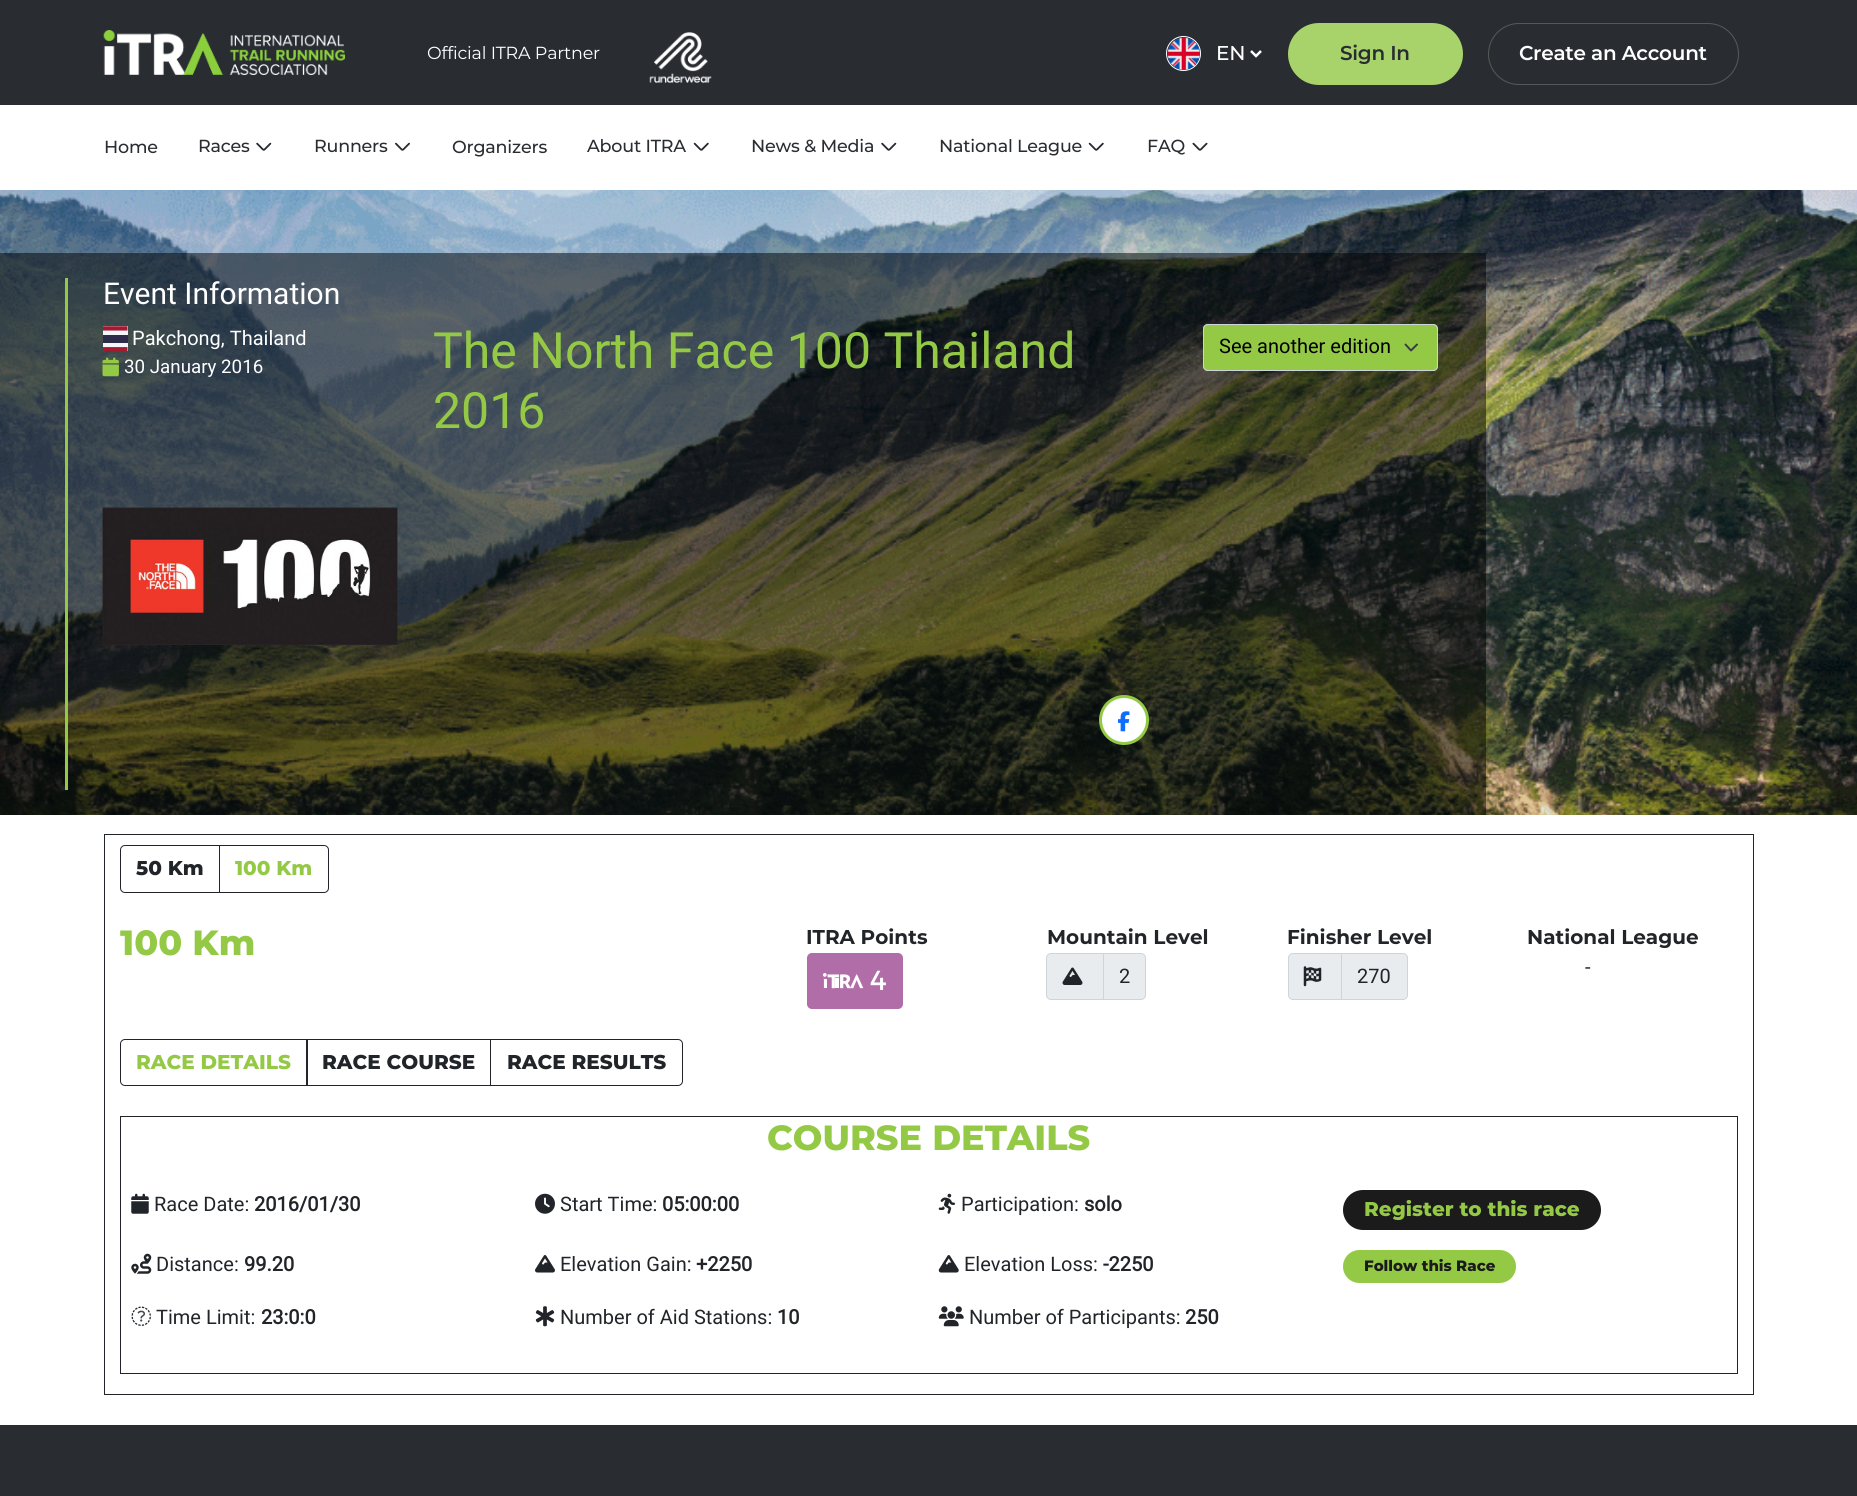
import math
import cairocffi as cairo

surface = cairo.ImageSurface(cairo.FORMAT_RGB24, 1857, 1496)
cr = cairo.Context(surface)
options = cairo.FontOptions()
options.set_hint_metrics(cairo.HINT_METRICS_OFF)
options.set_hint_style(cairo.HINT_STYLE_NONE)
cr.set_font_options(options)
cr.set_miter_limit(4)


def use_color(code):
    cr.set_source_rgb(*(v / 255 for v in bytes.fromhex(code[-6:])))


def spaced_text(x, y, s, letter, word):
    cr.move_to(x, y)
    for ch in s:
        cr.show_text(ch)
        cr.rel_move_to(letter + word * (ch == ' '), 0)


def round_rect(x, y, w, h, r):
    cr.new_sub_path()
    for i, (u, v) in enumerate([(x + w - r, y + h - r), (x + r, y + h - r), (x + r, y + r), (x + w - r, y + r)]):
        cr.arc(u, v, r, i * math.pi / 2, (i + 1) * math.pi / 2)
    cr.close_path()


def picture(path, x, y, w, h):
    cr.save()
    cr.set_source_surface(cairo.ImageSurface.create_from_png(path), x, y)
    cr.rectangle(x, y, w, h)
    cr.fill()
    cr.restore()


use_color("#ffffff")
cr.paint()
use_color("#292d32")
cr.rectangle(0, 0, 1857, 105)
cr.fill()
picture("img1.png", 103, 30, 242, 45)
cr.select_font_face("Montserrat")
cr.set_font_size(17.5)
use_color("#ffffff")
spaced_text(427, 59, "Official ITRA Partner", -0.2, 0)
picture("img2.png", 649, 32, 63, 51)
cr.arc(1183.5, 53.5, 17, 0, 2 * math.pi)
cr.set_line_width(1)
cr.stroke()
picture("img3.png", 1167, 37, 33, 33)
cr.new_path()
cr.move_to(1251, 51)
cr.line_to(1256, 56)
cr.line_to(1261, 51)
cr.set_line_width(2.5)
cr.stroke()
cr.select_font_face("Montserrat Medium")
cr.set_font_size(20)
spaced_text(1216, 60, "EN", -0.2, 0)
use_color("#a8d36a")
round_rect(1288, 23, 175, 62, 31)
cr.fill()
cr.select_font_face("Montserrat SemiBold")
use_color("#292d32")
spaced_text(1340, 60, "Sign In", -0.25, 0)
round_rect(1488.5, 23.5, 250, 61, 30.5)
use_color("#585858")
cr.set_line_width(1)
cr.stroke()
use_color("#ffffff")
spaced_text(1519, 60, "Create an Account", -0.25, 0)
cr.select_font_face("Montserrat Medium")
cr.set_font_size(17.5)
use_color("#292d32")
spaced_text(104, 153, "Home", -0.2, 0)
spaced_text(198, 152, "Races", -0.2, 0)
picture("img4.png", 256, 142, 16, 9)
spaced_text(314, 152, "Runners", -0.2, 0)
picture("img5.png", 395, 142, 15, 9)
spaced_text(452, 153, "Organizers", -0.2, 0)
spaced_text(587, 152, "About ITRA", -0.2, 0)
picture("img6.png", 693, 142, 16, 9)
spaced_text(751, 152, "News & Media", -0.2, 0)
picture("img4.png", 881, 142, 16, 9)
spaced_text(939, 152, "National League", -0.2, 0)
picture("img6.png", 1088, 142, 16, 9)
spaced_text(1147, 152, "FAQ", -0.2, 0)
picture("img7.png", 1192, 142, 16, 9)
picture("img8.png", 0, 190, 1857, 625)
cr.set_source_rgba(0, 0, 0, 0.5)
cr.rectangle(0, 253, 1486, 562)
cr.fill()
use_color("#94c946")
cr.rectangle(65, 278, 3, 512)
cr.fill()
cr.select_font_face("Heebo")
cr.set_font_size(30)
use_color("#ffffff")
cr.move_to(103, 304)
cr.show_text("Event Information")
picture("img9.png", 103, 326, 25, 25)
cr.set_font_size(20)
cr.move_to(132, 345)
cr.show_text("Pakchong, Thailand")
picture("img10.png", 102, 357, 17, 20)
cr.set_font_size(18.75)
cr.move_to(124, 373)
cr.show_text("30 January 2016")
cr.set_font_size(50)
use_color("#94c946")
cr.move_to(433, 368)
cr.show_text("The North Face 100 Thailand")
cr.move_to(433, 428)
cr.show_text("2016")
round_rect(1203, 324, 235, 47, 5)
cr.fill()
cr.new_path()
cr.move_to(1405.5, 344.5)
cr.line_to(1411, 350.5)
cr.line_to(1417, 344.5)
use_color("#343a40")
cr.set_line_width(1.9)
cr.set_line_cap(cairo.LINE_CAP_ROUND)
cr.set_line_join(cairo.LINE_JOIN_ROUND)
cr.stroke()
round_rect(1203.5, 324.5, 234, 46, 4.5)
use_color("#ced4da")
cr.set_line_width(1)
cr.set_line_cap(cairo.LINE_CAP_BUTT)
cr.set_line_join(cairo.LINE_JOIN_MITER)
cr.stroke()
cr.set_font_size(20)
use_color("#000000")
cr.move_to(1219, 353)
cr.show_text("See another edition")
picture("img11.png", 102, 507, 296, 138)
use_color("#ffffff")
cr.arc(1124, 720, 23.5, 0, 2 * math.pi)
cr.fill_preserve()
use_color("#94c946")
cr.set_line_width(3)
cr.stroke()
picture("img12.png", 1118, 711, 12, 21)
cr.rectangle(104.5, 834.5, 1649, 560)
use_color("#212529")
cr.set_line_width(1)
cr.stroke()
cr.new_path()
cr.move_to(125, 845.5)
cr.line_to(219.5, 845.5)
cr.line_to(219.5, 892.5)
cr.line_to(125, 892.5)
cr.curve_to(122.5, 892.5, 120.5, 890.5, 120.5, 888)
cr.line_to(120.5, 850)
cr.curve_to(120.5, 847.5, 122.5, 845.5, 125, 845.5)
cr.close_path()
cr.stroke()
cr.select_font_face("Montserrat ExtraBold")
cr.move_to(136, 875)
cr.show_text("50 Km")
cr.new_path()
cr.move_to(219.5, 845.5)
cr.line_to(324, 845.5)
cr.curve_to(326.5, 845.5, 328.5, 847.5, 328.5, 850)
cr.line_to(328.5, 888)
cr.curve_to(328.5, 890.5, 326.5, 892.5, 324, 892.5)
cr.line_to(219.5, 892.5)
cr.close_path()
cr.stroke()
use_color("#94c946")
cr.move_to(235, 875)
cr.show_text("100 Km")
cr.set_font_size(35)
cr.move_to(120, 955)
cr.show_text("100 Km")
cr.select_font_face("Montserrat", cairo.FONT_SLANT_NORMAL, cairo.FONT_WEIGHT_BOLD)
cr.set_font_size(20)
use_color("#212529")
cr.move_to(806, 944)
cr.show_text("ITRA Points")
picture("img13.png", 807, 953, 96, 56)
cr.move_to(1047, 944)
cr.show_text("Mountain Level")
use_color("#e9ecef")
cr.new_path()
cr.move_to(1051, 953.5)
cr.line_to(1103.5, 953.5)
cr.line_to(1103.5, 999.5)
cr.line_to(1051, 999.5)
cr.curve_to(1048.5, 999.5, 1046.5, 997.5, 1046.5, 995)
cr.line_to(1046.5, 958)
cr.curve_to(1046.5, 955.5, 1048.5, 953.5, 1051, 953.5)
cr.close_path()
cr.fill_preserve()
use_color("#ced4da")
cr.stroke()
picture("img14.png", 1062, 967, 21, 18)
use_color("#e9ecef")
cr.new_path()
cr.move_to(1103.5, 953.5)
cr.line_to(1141, 953.5)
cr.curve_to(1143.5, 953.5, 1145.5, 955.5, 1145.5, 958)
cr.line_to(1145.5, 995)
cr.curve_to(1145.5, 997.5, 1143.5, 999.5, 1141, 999.5)
cr.line_to(1103.5, 999.5)
cr.close_path()
cr.fill_preserve()
use_color("#ced4da")
cr.stroke()
cr.select_font_face("Heebo")
use_color("#212529")
cr.move_to(1119, 983)
cr.show_text("2")
cr.select_font_face("Montserrat", cairo.FONT_SLANT_NORMAL, cairo.FONT_WEIGHT_BOLD)
cr.move_to(1287, 944)
cr.show_text("Finisher Level")
use_color("#e9ecef")
cr.new_path()
cr.move_to(1293, 953.5)
cr.line_to(1342.5, 953.5)
cr.line_to(1342.5, 999.5)
cr.line_to(1293, 999.5)
cr.curve_to(1290.5, 999.5, 1288.5, 997.5, 1288.5, 995)
cr.line_to(1288.5, 958)
cr.curve_to(1288.5, 955.5, 1290.5, 953.5, 1293, 953.5)
cr.close_path()
cr.fill_preserve()
use_color("#ced4da")
cr.stroke()
picture("img15.png", 1303, 966, 19, 21)
use_color("#e9ecef")
cr.new_path()
cr.move_to(1341.5, 953.5)
cr.line_to(1403, 953.5)
cr.curve_to(1405.5, 953.5, 1407.5, 955.5, 1407.5, 958)
cr.line_to(1407.5, 995)
cr.curve_to(1407.5, 997.5, 1405.5, 999.5, 1403, 999.5)
cr.line_to(1341.5, 999.5)
cr.close_path()
cr.fill_preserve()
use_color("#ced4da")
cr.stroke()
cr.select_font_face("Heebo")
use_color("#212529")
cr.move_to(1357, 983)
cr.show_text("270")
cr.select_font_face("Montserrat", cairo.FONT_SLANT_NORMAL, cairo.FONT_WEIGHT_BOLD)
cr.move_to(1527, 944)
cr.show_text("National League")
cr.select_font_face("Heebo")
cr.move_to(1585, 974)
cr.show_text("-")
cr.new_path()
cr.move_to(125, 1039.5)
cr.line_to(307.5, 1039.5)
cr.line_to(307.5, 1085.5)
cr.line_to(125, 1085.5)
cr.curve_to(122.5, 1085.5, 120.5, 1083.5, 120.5, 1081)
cr.line_to(120.5, 1044)
cr.curve_to(120.5, 1041.5, 122.5, 1039.5, 125, 1039.5)
cr.close_path()
cr.stroke()
cr.select_font_face("Montserrat ExtraBold")
use_color("#94c946")
cr.move_to(136, 1069)
cr.show_text("RACE DETAILS")
cr.rectangle(306.5, 1039.5, 184, 46)
use_color("#212529")
cr.stroke()
cr.move_to(322, 1069)
cr.show_text("RACE COURSE")
cr.new_path()
cr.move_to(490.5, 1039.5)
cr.line_to(678, 1039.5)
cr.curve_to(680.5, 1039.5, 682.5, 1041.5, 682.5, 1044)
cr.line_to(682.5, 1081)
cr.curve_to(682.5, 1083.5, 680.5, 1085.5, 678, 1085.5)
cr.line_to(490.5, 1085.5)
cr.close_path()
cr.stroke()
cr.move_to(507, 1069)
cr.show_text("RACE RESULTS")
cr.rectangle(120.5, 1116.5, 1617, 257)
cr.stroke()
cr.set_font_size(35)
use_color("#94c946")
cr.move_to(767, 1150)
cr.show_text("COURSE DETAILS")
picture("img16.png", 131, 1193, 18, 21)
cr.select_font_face("Heebo")
cr.set_font_size(20)
use_color("#212529")
cr.move_to(154, 1211)
cr.show_text("Race Date:")
cr.select_font_face("Heebo", cairo.FONT_SLANT_NORMAL, cairo.FONT_WEIGHT_BOLD)
cr.move_to(254, 1211)
cr.show_text("2016/01/30")
picture("img17.png", 535, 1193, 20, 21)
cr.select_font_face("Heebo")
cr.move_to(560, 1211)
cr.show_text("Start Time:")
cr.select_font_face("Heebo", cairo.FONT_SLANT_NORMAL, cairo.FONT_WEIGHT_BOLD)
cr.move_to(662, 1211)
cr.show_text("05:00:00")
picture("img18.png", 938, 1193, 17, 21)
cr.select_font_face("Heebo")
cr.move_to(961, 1211)
cr.show_text("Participation:")
cr.select_font_face("Heebo", cairo.FONT_SLANT_NORMAL, cairo.FONT_WEIGHT_BOLD)
cr.move_to(1084, 1211)
cr.show_text("solo")
use_color("#1b1b1b")
round_rect(1343, 1190, 258, 40, 20)
cr.fill()
cr.select_font_face("Montserrat ExtraBold")
use_color("#94c946")
cr.move_to(1364, 1216)
cr.show_text("Register to this race")
picture("img19.png", 131, 1253, 21, 21)
cr.select_font_face("Heebo")
use_color("#212529")
cr.move_to(156, 1271)
cr.show_text("Distance:")
cr.select_font_face("Heebo", cairo.FONT_SLANT_NORMAL, cairo.FONT_WEIGHT_BOLD)
cr.move_to(244, 1271)
cr.show_text("99.20")
picture("img20.png", 535, 1255, 20, 18)
cr.select_font_face("Heebo")
cr.move_to(560, 1271)
cr.show_text("Elevation Gain:")
cr.select_font_face("Heebo", cairo.FONT_SLANT_NORMAL, cairo.FONT_WEIGHT_BOLD)
cr.move_to(696, 1271)
cr.show_text("+2250")
picture("img21.png", 938, 1255, 21, 18)
cr.select_font_face("Heebo")
cr.move_to(964, 1271)
cr.show_text("Elevation Loss:")
cr.select_font_face("Heebo", cairo.FONT_SLANT_NORMAL, cairo.FONT_WEIGHT_BOLD)
cr.move_to(1103, 1271)
cr.show_text("-2250")
use_color("#94c946")
round_rect(1343, 1250, 173, 33, 16.5)
cr.fill()
cr.select_font_face("Montserrat ExtraBold")
cr.set_font_size(15)
use_color("#1b1b1b")
cr.move_to(1364, 1271)
cr.show_text("Follow this Race")
picture("img22.png", 131, 1306, 20, 20)
cr.select_font_face("Heebo")
cr.set_font_size(20)
use_color("#212529")
cr.move_to(156, 1324)
cr.show_text("Time Limit:")
cr.select_font_face("Heebo", cairo.FONT_SLANT_NORMAL, cairo.FONT_WEIGHT_BOLD)
cr.move_to(261, 1324)
cr.show_text("23:0:0")
picture("img23.png", 535, 1306, 20, 21)
cr.select_font_face("Heebo")
cr.move_to(560, 1324)
cr.show_text("Number of Aid Stations:")
cr.select_font_face("Heebo", cairo.FONT_SLANT_NORMAL, cairo.FONT_WEIGHT_BOLD)
cr.move_to(777, 1324)
cr.show_text("10")
picture("img24.png", 938, 1306, 26, 21)
cr.select_font_face("Heebo")
cr.move_to(969, 1324)
cr.show_text("Number of Participants:")
cr.select_font_face("Heebo", cairo.FONT_SLANT_NORMAL, cairo.FONT_WEIGHT_BOLD)
cr.move_to(1185, 1324)
cr.show_text("250")
use_color("#292d32")
cr.rectangle(0, 1425, 1857, 71)
cr.fill()
surface.write_to_png("result.png")
